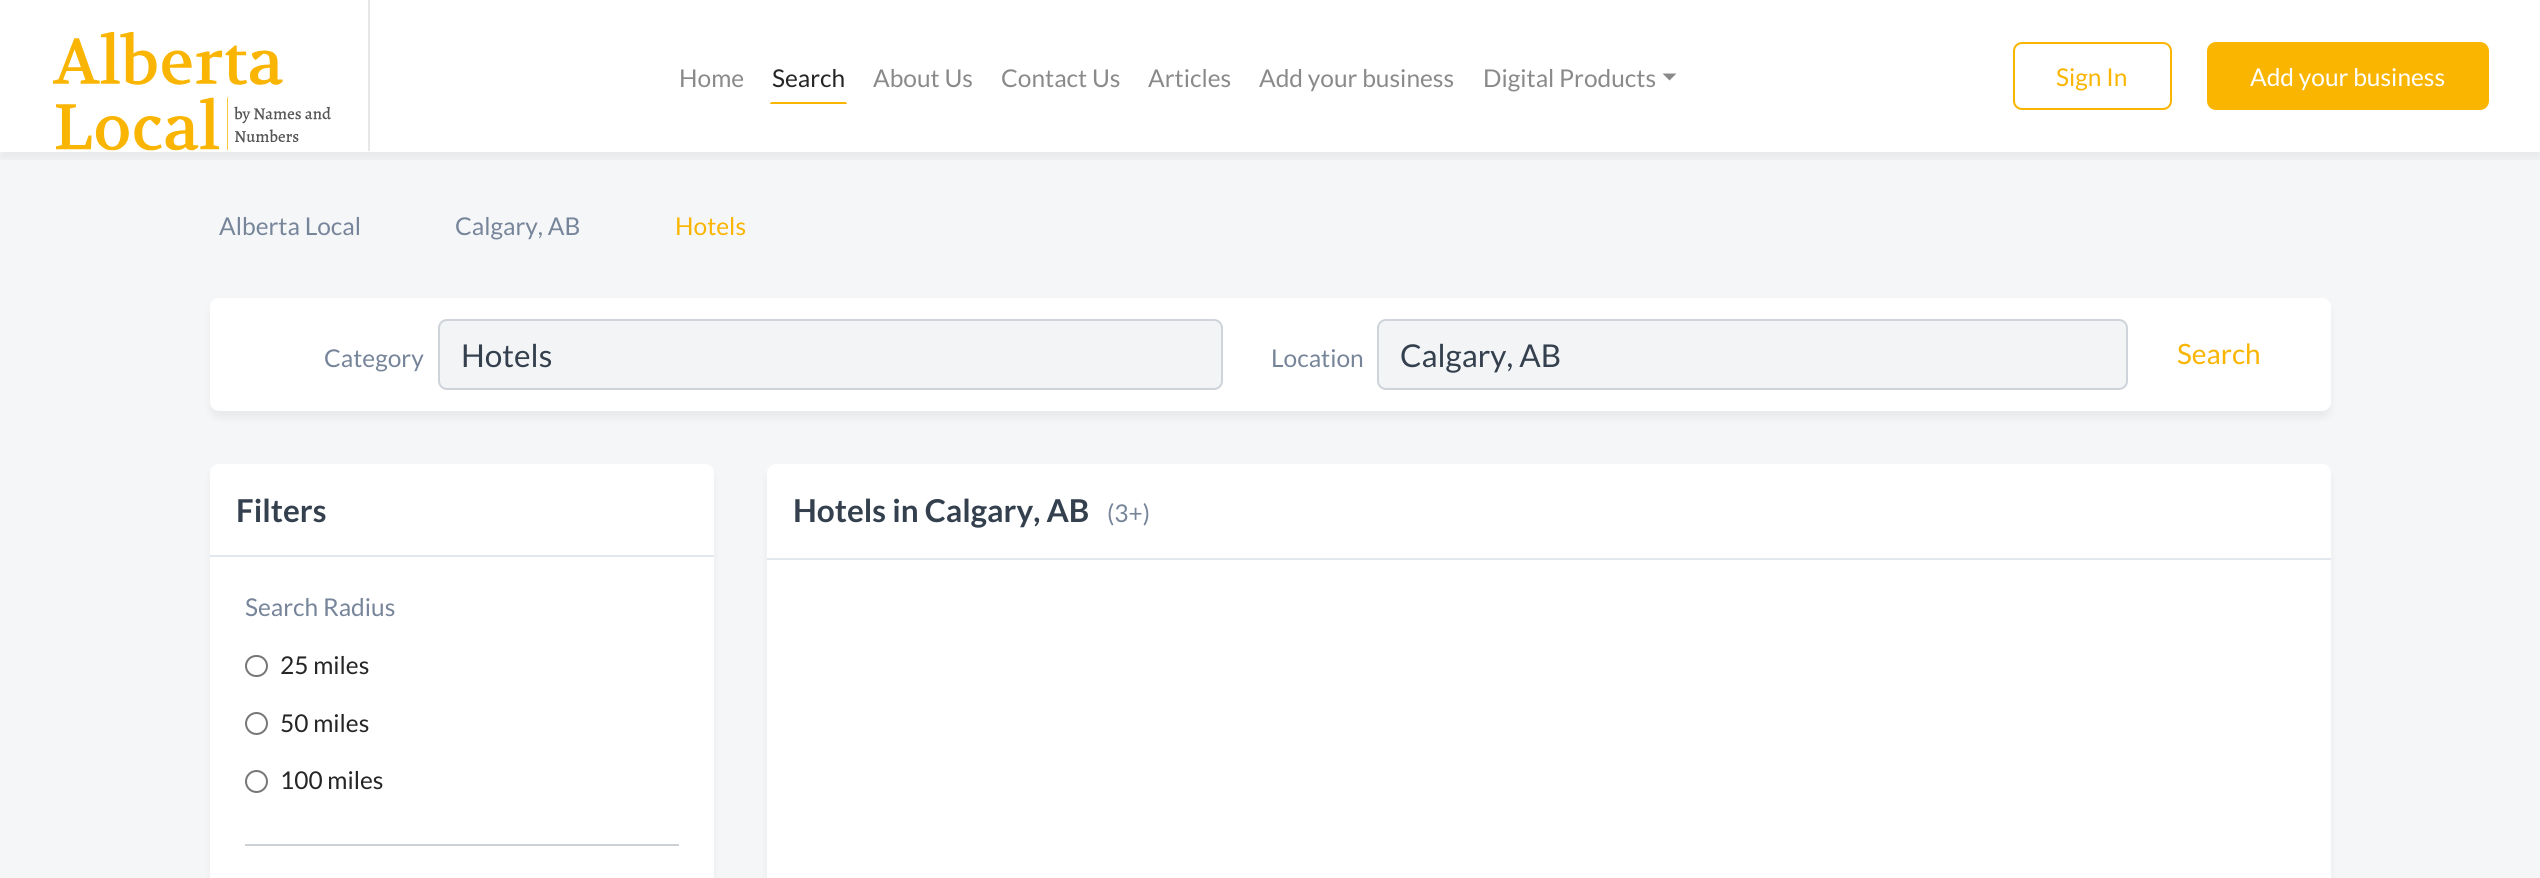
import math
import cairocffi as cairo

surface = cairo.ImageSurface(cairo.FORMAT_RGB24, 2540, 878)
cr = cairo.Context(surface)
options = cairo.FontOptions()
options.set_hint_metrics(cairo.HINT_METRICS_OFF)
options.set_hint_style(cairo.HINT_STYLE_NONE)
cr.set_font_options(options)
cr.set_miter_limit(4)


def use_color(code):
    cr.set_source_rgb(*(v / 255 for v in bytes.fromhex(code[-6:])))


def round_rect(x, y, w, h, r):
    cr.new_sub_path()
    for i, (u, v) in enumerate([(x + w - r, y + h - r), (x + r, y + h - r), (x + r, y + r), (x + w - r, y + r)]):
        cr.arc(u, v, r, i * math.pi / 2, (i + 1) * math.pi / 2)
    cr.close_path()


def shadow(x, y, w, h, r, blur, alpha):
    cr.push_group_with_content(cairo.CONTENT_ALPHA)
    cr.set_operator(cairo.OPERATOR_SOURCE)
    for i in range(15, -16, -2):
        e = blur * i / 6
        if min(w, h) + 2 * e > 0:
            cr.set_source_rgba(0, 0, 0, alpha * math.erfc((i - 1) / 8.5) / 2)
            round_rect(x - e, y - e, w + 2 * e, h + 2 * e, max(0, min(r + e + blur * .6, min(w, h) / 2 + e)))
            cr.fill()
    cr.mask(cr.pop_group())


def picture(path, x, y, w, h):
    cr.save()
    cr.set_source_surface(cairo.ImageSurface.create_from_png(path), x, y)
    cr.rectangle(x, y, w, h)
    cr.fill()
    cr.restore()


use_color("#ffffff")
cr.paint()
use_color("#f5f6f8")
cr.rectangle(0, 152, 2540, 726)
cr.fill()
cr.save()
cr.rectangle(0, 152, 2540, 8)
cr.clip()
use_color("#000000")
shadow(0, 7, 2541, 152, 0, 3.5, 0.05)
cr.restore()
picture("img1.png", 53, 32, 278, 119)
use_color("#e7e7e7")
cr.rectangle(368, 0, 2, 151)
cr.fill()
cr.select_font_face("Lato")
cr.set_font_size(24.5)
use_color("#8a8a8a")
cr.move_to(679, 87)
cr.show_text("Home")
use_color("#252525")
cr.move_to(772, 87)
cr.show_text("Search")
use_color("#fab501")
cr.new_path()
cr.move_to(772, 102)
cr.line_to(845, 102)
cr.curve_to(846, 102, 847, 103, 847, 104)
cr.line_to(770, 104)
cr.curve_to(770, 103, 771, 102, 772, 102)
cr.close_path()
cr.fill()
use_color("#8a8a8a")
cr.move_to(873, 87)
cr.show_text("About Us")
cr.move_to(1001, 87)
cr.show_text("Contact Us")
cr.move_to(1148, 87)
cr.show_text("Articles")
cr.move_to(1259, 87)
cr.show_text("Add your business")
cr.move_to(1483, 87)
cr.show_text("Digital Products")
cr.new_path()
cr.move_to(1662.5, 73.5)
cr.line_to(1676.5, 73.5)
cr.line_to(1669.5, 80.5)
cr.close_path()
cr.fill()
round_rect(2014, 43, 157, 66, 8)
use_color("#fab501")
cr.stroke()
cr.move_to(2056, 86)
cr.show_text("Sign In")
round_rect(2208, 43, 280, 66, 8)
cr.fill_preserve()
cr.stroke()
use_color("#ffffff")
cr.move_to(2250, 86)
cr.show_text("Add your business")
use_color("#77859a")
cr.move_to(219, 235)
cr.show_text("Alberta Local")
cr.move_to(455, 235)
cr.show_text("Calgary, AB")
use_color("#fab501")
cr.move_to(675, 235)
cr.show_text("Hotels")
use_color("#000000")
shadow(210, 305, 2121, 113, 9, 3.5, 0.05)
use_color("#ffffff")
round_rect(210, 298, 2121, 113, 9)
cr.fill()
use_color("#77859a")
cr.move_to(324, 367)
cr.show_text("Category")
use_color("#f2f4f6")
round_rect(439, 320, 783, 69, 8)
cr.fill_preserve()
use_color("#ced4da")
cr.stroke()
cr.set_font_size(31.5)
use_color("#34404e")
cr.move_to(461, 367)
cr.show_text("Hotels")
cr.set_font_size(24.5)
use_color("#77859a")
cr.move_to(1271, 367)
cr.show_text("Location")
use_color("#f2f4f6")
round_rect(1378, 320, 749, 69, 8)
cr.fill_preserve()
use_color("#ced4da")
cr.stroke()
cr.set_font_size(31.5)
use_color("#34404e")
cr.move_to(1400, 367)
cr.show_text("Calgary, AB")
cr.set_font_size(28)
use_color("#fab501")
cr.move_to(2177, 364)
cr.show_text("Search")
use_color("#000000")
shadow(210, 471, 504, 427, 9, 3.5, 0.05)
use_color("#ffffff")
round_rect(210, 464, 504, 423, 9)
cr.fill()
use_color("#e2e8ed")
cr.rectangle(210, 555, 504, 2)
cr.fill()
cr.select_font_face("Lato", cairo.FONT_SLANT_NORMAL, cairo.FONT_WEIGHT_BOLD)
cr.set_font_size(31.5)
use_color("#34404e")
cr.move_to(236, 522)
cr.show_text("Filters")
cr.select_font_face("Lato")
cr.set_font_size(24.5)
use_color("#77859a")
cr.move_to(245, 616)
cr.show_text("Search Radius")
round_rect(246, 656, 21, 20, 10)
use_color("#767676")
cr.stroke()
use_color("#252525")
cr.move_to(280, 674)
cr.show_text("25 miles")
cr.new_path()
cr.arc(256.5, 723.5, 10.5, 0, 2 * math.pi)
use_color("#767676")
cr.stroke()
use_color("#252525")
cr.move_to(280, 732)
cr.show_text("50 miles")
cr.new_path()
cr.arc(256.5, 781.5, 10.5, 0, 2 * math.pi)
use_color("#767676")
cr.stroke()
use_color("#252525")
cr.move_to(280, 789)
cr.show_text("100 miles")
use_color("#cbd1d5")
cr.rectangle(245, 844, 434, 2)
cr.fill()
use_color("#000000")
shadow(767, 471, 1564, 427, 9, 3.5, 0.05)
use_color("#ffffff")
round_rect(767, 464, 1564, 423, 9)
cr.fill()
use_color("#e2e8ed")
cr.rectangle(767, 558, 1564, 2)
cr.fill()
cr.select_font_face("Lato", cairo.FONT_SLANT_NORMAL, cairo.FONT_WEIGHT_BOLD)
cr.set_font_size(31.5)
use_color("#34404e")
cr.move_to(793, 522)
cr.show_text("Hotels in Calgary, AB")
cr.select_font_face("Lato")
cr.set_font_size(24.5)
use_color("#77859a")
cr.move_to(1107, 522)
cr.show_text("(3+)")
surface.write_to_png("result.png")
